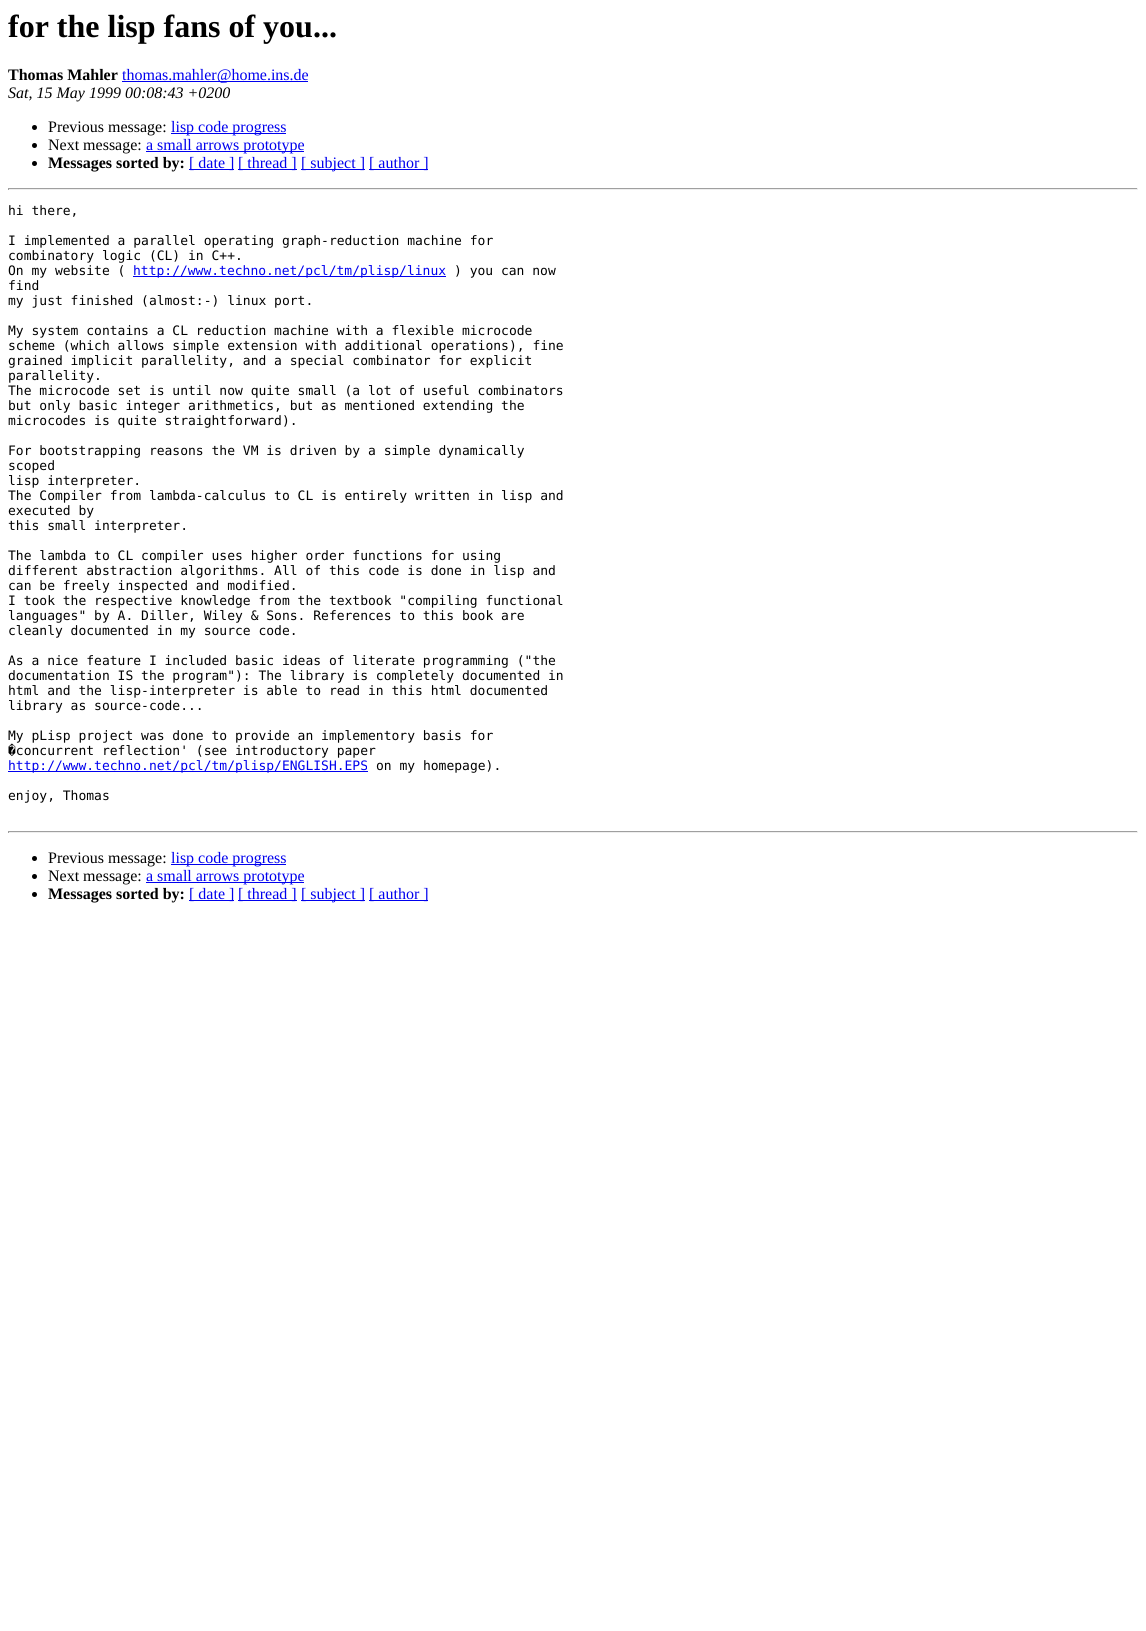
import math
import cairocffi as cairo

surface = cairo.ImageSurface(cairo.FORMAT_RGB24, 1146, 1631)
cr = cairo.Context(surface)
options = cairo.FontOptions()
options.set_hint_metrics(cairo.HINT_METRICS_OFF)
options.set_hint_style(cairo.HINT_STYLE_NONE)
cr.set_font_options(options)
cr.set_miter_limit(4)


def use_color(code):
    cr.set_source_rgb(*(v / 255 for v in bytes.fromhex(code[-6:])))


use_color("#ffffff")
cr.paint()
cr.select_font_face("Liberation Serif", cairo.FONT_SLANT_NORMAL, cairo.FONT_WEIGHT_BOLD)
cr.set_font_size(32)
use_color("#000000")
cr.move_to(8, 37)
cr.show_text("for the lisp fans of you...")
cr.set_font_size(16)
cr.move_to(8, 80)
cr.show_text("Thomas Mahler")
use_color("#0000ee")
cr.rectangle(122, 81, 186, 1)
cr.fill()
cr.select_font_face("Liberation Serif")
cr.move_to(122, 80)
cr.show_text("thomas.mahler@home.ins.de")
cr.select_font_face("Liberation Serif", cairo.FONT_SLANT_ITALIC)
use_color("#000000")
cr.move_to(8, 98)
cr.show_text("Sat, 15 May 1999 00:08:43 +0200")
cr.new_path()
cr.arc(34.5, 127.5, 2.5, 0, 2 * math.pi)
cr.fill()
cr.select_font_face("Liberation Serif")
cr.move_to(48, 132)
cr.show_text("Previous message:")
use_color("#0000ee")
cr.rectangle(171, 133, 115, 1)
cr.fill()
cr.move_to(171, 132)
cr.show_text("lisp code progress")
use_color("#000000")
cr.new_path()
cr.arc(34.5, 145.5, 2.5, 0, 2 * math.pi)
cr.fill()
cr.move_to(48, 150)
cr.show_text("Next message:")
use_color("#0000ee")
cr.rectangle(146, 151, 158, 1)
cr.fill()
cr.move_to(146, 150)
cr.show_text("a small arrows prototype")
use_color("#000000")
cr.new_path()
cr.arc(34.5, 163.5, 2.5, 0, 2 * math.pi)
cr.fill()
cr.select_font_face("Liberation Serif", cairo.FONT_SLANT_NORMAL, cairo.FONT_WEIGHT_BOLD)
cr.move_to(48, 168)
cr.show_text("Messages sorted by:")
use_color("#0000ee")
cr.rectangle(189, 169, 45, 1)
cr.fill()
cr.select_font_face("Liberation Serif")
cr.move_to(189, 168)
cr.show_text("[ date ]")
cr.rectangle(238, 169, 59, 1)
cr.fill()
cr.move_to(238, 168)
cr.show_text("[ thread ]")
cr.rectangle(301, 169, 64, 1)
cr.fill()
cr.move_to(301, 168)
cr.show_text("[ subject ]")
cr.rectangle(369, 169, 59, 1)
cr.fill()
cr.move_to(369, 168)
cr.show_text("[ author ]")
use_color("#9f9f9f")
cr.rectangle(8, 188, 1130, 1)
cr.fill()
use_color("#eeeeee")
cr.rectangle(1137, 188, 1, 2)
cr.fill()
cr.rectangle(8, 189, 1130, 1)
cr.fill()
use_color("#9f9f9f")
cr.rectangle(8, 188, 1, 2)
cr.fill()
cr.select_font_face("DejaVu Sans Mono")
cr.set_font_size(13)
use_color("#000000")
cr.move_to(8, 215)
cr.show_text("hi there,")
cr.move_to(8, 245)
cr.show_text("I implemented a parallel operating graph-reduction machine for")
cr.move_to(8, 260)
cr.show_text("combinatory logic (CL) in C++.")
cr.move_to(8, 275)
cr.show_text("On my website (")
use_color("#0000ee")
cr.rectangle(133, 276, 313, 1)
cr.fill()
cr.move_to(133, 275)
cr.show_text("http://www.techno.net/pcl/tm/plisp/linux")
use_color("#000000")
cr.move_to(454, 275)
cr.show_text(") you can now")
cr.move_to(8, 290)
cr.show_text("find")
cr.move_to(8, 305)
cr.show_text("my just finished (almost:-) linux port.")
cr.move_to(8, 335)
cr.show_text("My system contains a CL reduction machine with a flexible microcode")
cr.move_to(8, 350)
cr.show_text("scheme (which allows simple extension with additional operations), fine")
cr.move_to(8, 365)
cr.show_text("grained implicit parallelity, and a special combinator for explicit")
cr.move_to(8, 380)
cr.show_text("parallelity.")
cr.move_to(8, 395)
cr.show_text("The microcode set is until now quite small (a lot of useful combinators")
cr.move_to(8, 410)
cr.show_text("but only basic integer arithmetics, but as mentioned extending the")
cr.move_to(8, 425)
cr.show_text("microcodes is quite straightforward).")
cr.move_to(8, 455)
cr.show_text("For bootstrapping reasons the VM is driven by a simple dynamically")
cr.move_to(8, 470)
cr.show_text("scoped")
cr.move_to(8, 485)
cr.show_text("lisp interpreter.")
cr.move_to(8, 500)
cr.show_text("The Compiler from lambda-calculus to CL is entirely written in lisp and")
cr.move_to(8, 515)
cr.show_text("executed by")
cr.move_to(8, 530)
cr.show_text("this small interpreter.")
cr.move_to(8, 560)
cr.show_text("The lambda to CL compiler uses higher order functions for using")
cr.move_to(8, 575)
cr.show_text("different abstraction algorithms. All of this code is done in lisp and")
cr.move_to(8, 590)
cr.show_text("can be freely inspected and modified.")
cr.move_to(8, 605)
cr.show_text("I took the respective knowledge from the textbook \"compiling functional")
cr.move_to(8, 620)
cr.show_text("languages\" by A. Diller, Wiley & Sons. References to this book are")
cr.move_to(8, 635)
cr.show_text("cleanly documented in my source code.")
cr.move_to(8, 665)
cr.show_text("As a nice feature I included basic ideas of literate programming (\"the")
cr.move_to(8, 680)
cr.show_text("documentation IS the program\"): The library is completely documented in")
cr.move_to(8, 695)
cr.show_text("html and the lisp-interpreter is able to read in this html documented")
cr.move_to(8, 710)
cr.show_text("library as source-code...")
cr.move_to(8, 740)
cr.show_text("My pLisp project was done to provide an implementory basis for")
cr.move_to(8, 755)
cr.show_text("�concurrent reflection' (see introductory paper")
use_color("#0000ee")
cr.rectangle(8, 771, 360, 1)
cr.fill()
cr.move_to(8, 770)
cr.show_text("http://www.techno.net/pcl/tm/plisp/ENGLISH.EPS")
use_color("#000000")
cr.move_to(376, 770)
cr.show_text("on my homepage).")
cr.move_to(8, 800)
cr.show_text("enjoy, Thomas")
use_color("#9f9f9f")
cr.rectangle(8, 831, 1130, 1)
cr.fill()
use_color("#eeeeee")
cr.rectangle(1137, 831, 1, 2)
cr.fill()
cr.rectangle(8, 832, 1130, 1)
cr.fill()
use_color("#9f9f9f")
cr.rectangle(8, 831, 1, 2)
cr.fill()
use_color("#000000")
cr.arc(34.5, 858.5, 2.5, 0, 2 * math.pi)
cr.fill()
cr.select_font_face("Liberation Serif")
cr.set_font_size(16)
cr.move_to(48, 863)
cr.show_text("Previous message:")
use_color("#0000ee")
cr.rectangle(171, 864, 115, 1)
cr.fill()
cr.move_to(171, 863)
cr.show_text("lisp code progress")
use_color("#000000")
cr.new_path()
cr.arc(34.5, 876.5, 2.5, 0, 2 * math.pi)
cr.fill()
cr.move_to(48, 881)
cr.show_text("Next message:")
use_color("#0000ee")
cr.rectangle(146, 882, 158, 1)
cr.fill()
cr.move_to(146, 881)
cr.show_text("a small arrows prototype")
use_color("#000000")
cr.new_path()
cr.arc(34.5, 894.5, 2.5, 0, 2 * math.pi)
cr.fill()
cr.select_font_face("Liberation Serif", cairo.FONT_SLANT_NORMAL, cairo.FONT_WEIGHT_BOLD)
cr.move_to(48, 899)
cr.show_text("Messages sorted by:")
use_color("#0000ee")
cr.rectangle(189, 900, 45, 1)
cr.fill()
cr.select_font_face("Liberation Serif")
cr.move_to(189, 899)
cr.show_text("[ date ]")
cr.rectangle(238, 900, 59, 1)
cr.fill()
cr.move_to(238, 899)
cr.show_text("[ thread ]")
cr.rectangle(301, 900, 64, 1)
cr.fill()
cr.move_to(301, 899)
cr.show_text("[ subject ]")
cr.rectangle(369, 900, 59, 1)
cr.fill()
cr.move_to(369, 899)
cr.show_text("[ author ]")
surface.write_to_png("result.png")
